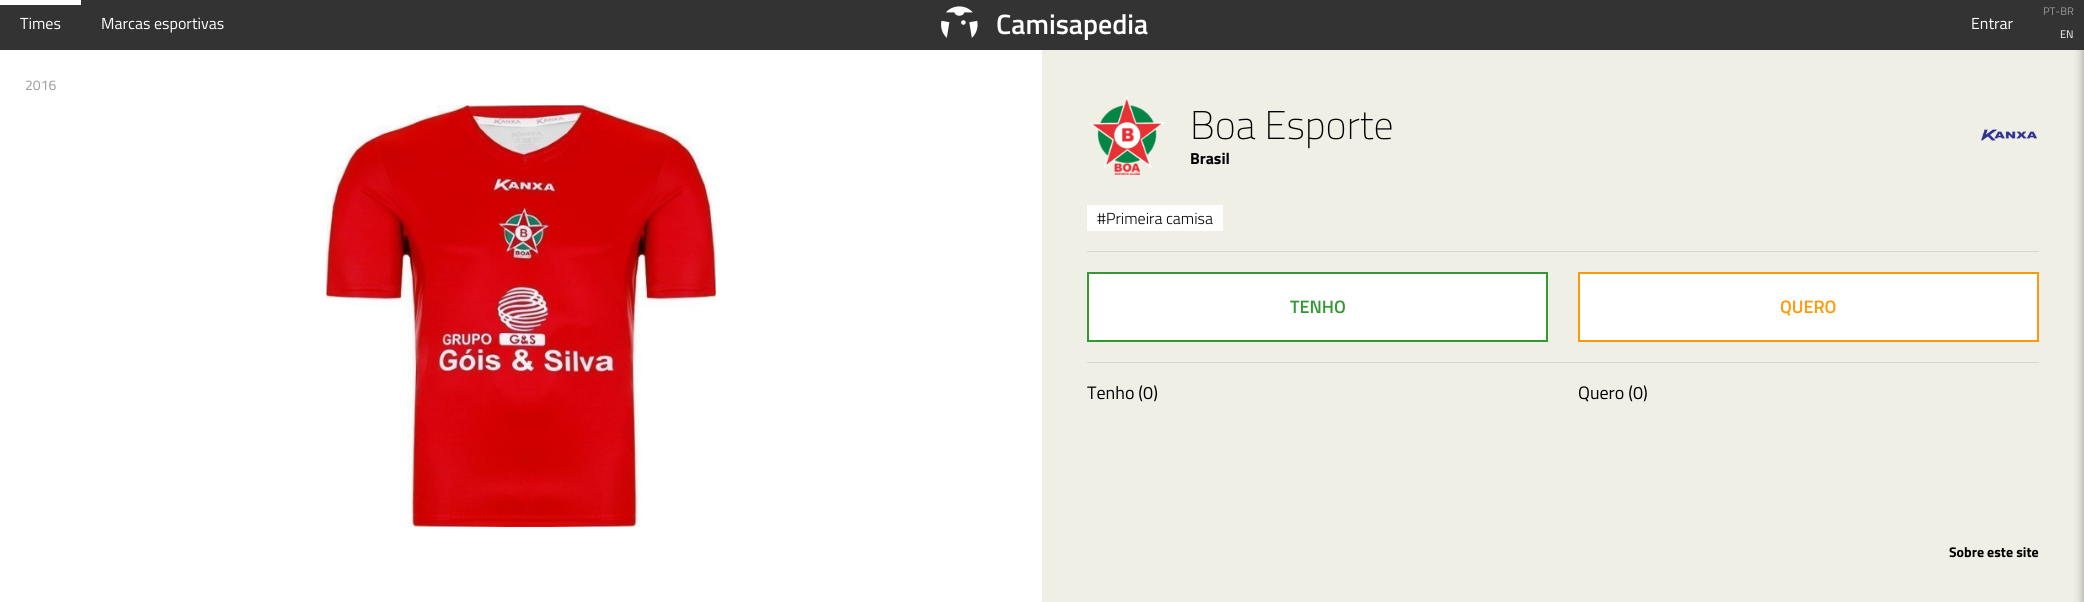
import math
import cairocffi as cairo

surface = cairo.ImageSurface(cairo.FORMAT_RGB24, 2084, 602)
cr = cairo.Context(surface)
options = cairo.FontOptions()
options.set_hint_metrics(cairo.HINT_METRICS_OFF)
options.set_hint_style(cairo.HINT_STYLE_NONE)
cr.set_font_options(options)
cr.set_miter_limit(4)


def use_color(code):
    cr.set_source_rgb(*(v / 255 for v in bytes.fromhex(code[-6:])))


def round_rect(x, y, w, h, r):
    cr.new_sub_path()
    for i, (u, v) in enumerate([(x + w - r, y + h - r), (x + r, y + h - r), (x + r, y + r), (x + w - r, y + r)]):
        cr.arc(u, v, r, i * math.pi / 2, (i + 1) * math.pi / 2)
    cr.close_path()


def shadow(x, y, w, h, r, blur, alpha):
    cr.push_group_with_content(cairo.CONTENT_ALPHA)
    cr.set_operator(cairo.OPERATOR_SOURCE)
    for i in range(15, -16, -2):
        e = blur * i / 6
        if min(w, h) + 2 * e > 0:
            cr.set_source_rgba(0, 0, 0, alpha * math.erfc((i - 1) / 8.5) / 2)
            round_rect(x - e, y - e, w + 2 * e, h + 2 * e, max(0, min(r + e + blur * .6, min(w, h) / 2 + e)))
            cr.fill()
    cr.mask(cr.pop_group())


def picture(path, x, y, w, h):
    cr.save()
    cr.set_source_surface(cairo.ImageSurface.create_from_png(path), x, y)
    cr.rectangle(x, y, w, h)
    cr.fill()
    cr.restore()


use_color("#ffffff")
cr.paint()
use_color("#efefe5")
cr.rectangle(1042, 50, 1042, 552)
cr.fill()
use_color("#000000")
shadow(2084, 0, 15, 602, 0, 5, 0.4)
use_color("#333333")
cr.rectangle(0, 0, 2084, 50)
cr.fill()
use_color("#ffffff")
cr.rectangle(0, 0, 81, 5)
cr.fill()
cr.select_font_face("Titillium Web")
cr.set_font_size(16)
cr.move_to(20, 29)
cr.show_text("Times")
cr.move_to(101, 29)
cr.show_text("Marcas esportivas")
picture("img1.png", 941, 6, 37, 32)
cr.select_font_face("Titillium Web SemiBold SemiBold")
cr.set_font_size(28)
cr.move_to(996, 34)
cr.show_text("Camisapedia")
cr.select_font_face("Titillium Web")
cr.set_font_size(16)
cr.move_to(1971, 29)
cr.show_text("Entrar")
cr.set_font_size(11)
use_color("#999999")
cr.move_to(2043, 15)
cr.show_text("PT-BR")
use_color("#ffffff")
cr.move_to(2060, 38)
cr.show_text("EN")
cr.set_font_size(14)
use_color("#999999")
cr.move_to(25, 90)
cr.show_text("2016")
picture("img2.png", 326, 105, 390, 422)
picture("img3.png", 1089, 95, 76, 80)
cr.select_font_face("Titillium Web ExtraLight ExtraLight")
cr.set_font_size(40)
use_color("#000000")
cr.move_to(1190, 139)
cr.show_text("Boa Esporte")
cr.select_font_face("Titillium Web", cairo.FONT_SLANT_NORMAL, cairo.FONT_WEIGHT_BOLD)
cr.set_font_size(16)
cr.move_to(1190, 164)
cr.show_text("Brasil")
picture("img4.png", 1981, 129, 56, 12)
use_color("#ffffff")
cr.rectangle(1087, 205, 136, 26)
cr.fill()
cr.select_font_face("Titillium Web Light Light")
use_color("#000000")
cr.move_to(1097, 224)
cr.show_text("#Primeira camisa")
use_color("#d7d7ce")
cr.rectangle(1087, 251, 952, 1)
cr.fill()
cr.rectangle(1087, 362, 952, 1)
cr.fill()
use_color("#ffffff")
cr.rectangle(1088, 273, 459, 68)
cr.fill_preserve()
use_color("#339933")
cr.stroke()
cr.select_font_face("Titillium Web SemiBold SemiBold")
cr.set_font_size(18)
cr.move_to(1290, 313)
cr.show_text("TENHO")
use_color("#ffffff")
cr.rectangle(1579, 273, 459, 68)
cr.fill_preserve()
use_color("#ff9908")
cr.stroke()
cr.move_to(1780, 313)
cr.show_text("QUERO")
cr.select_font_face("Titillium Web")
use_color("#000000")
cr.move_to(1087, 399)
cr.show_text("Tenho (0)")
cr.move_to(1578, 399)
cr.show_text("Quero (0)")
cr.select_font_face("Titillium Web", cairo.FONT_SLANT_NORMAL, cairo.FONT_WEIGHT_BOLD)
cr.set_font_size(14)
cr.move_to(1949, 557)
cr.show_text("Sobre este site")
surface.write_to_png("result.png")
